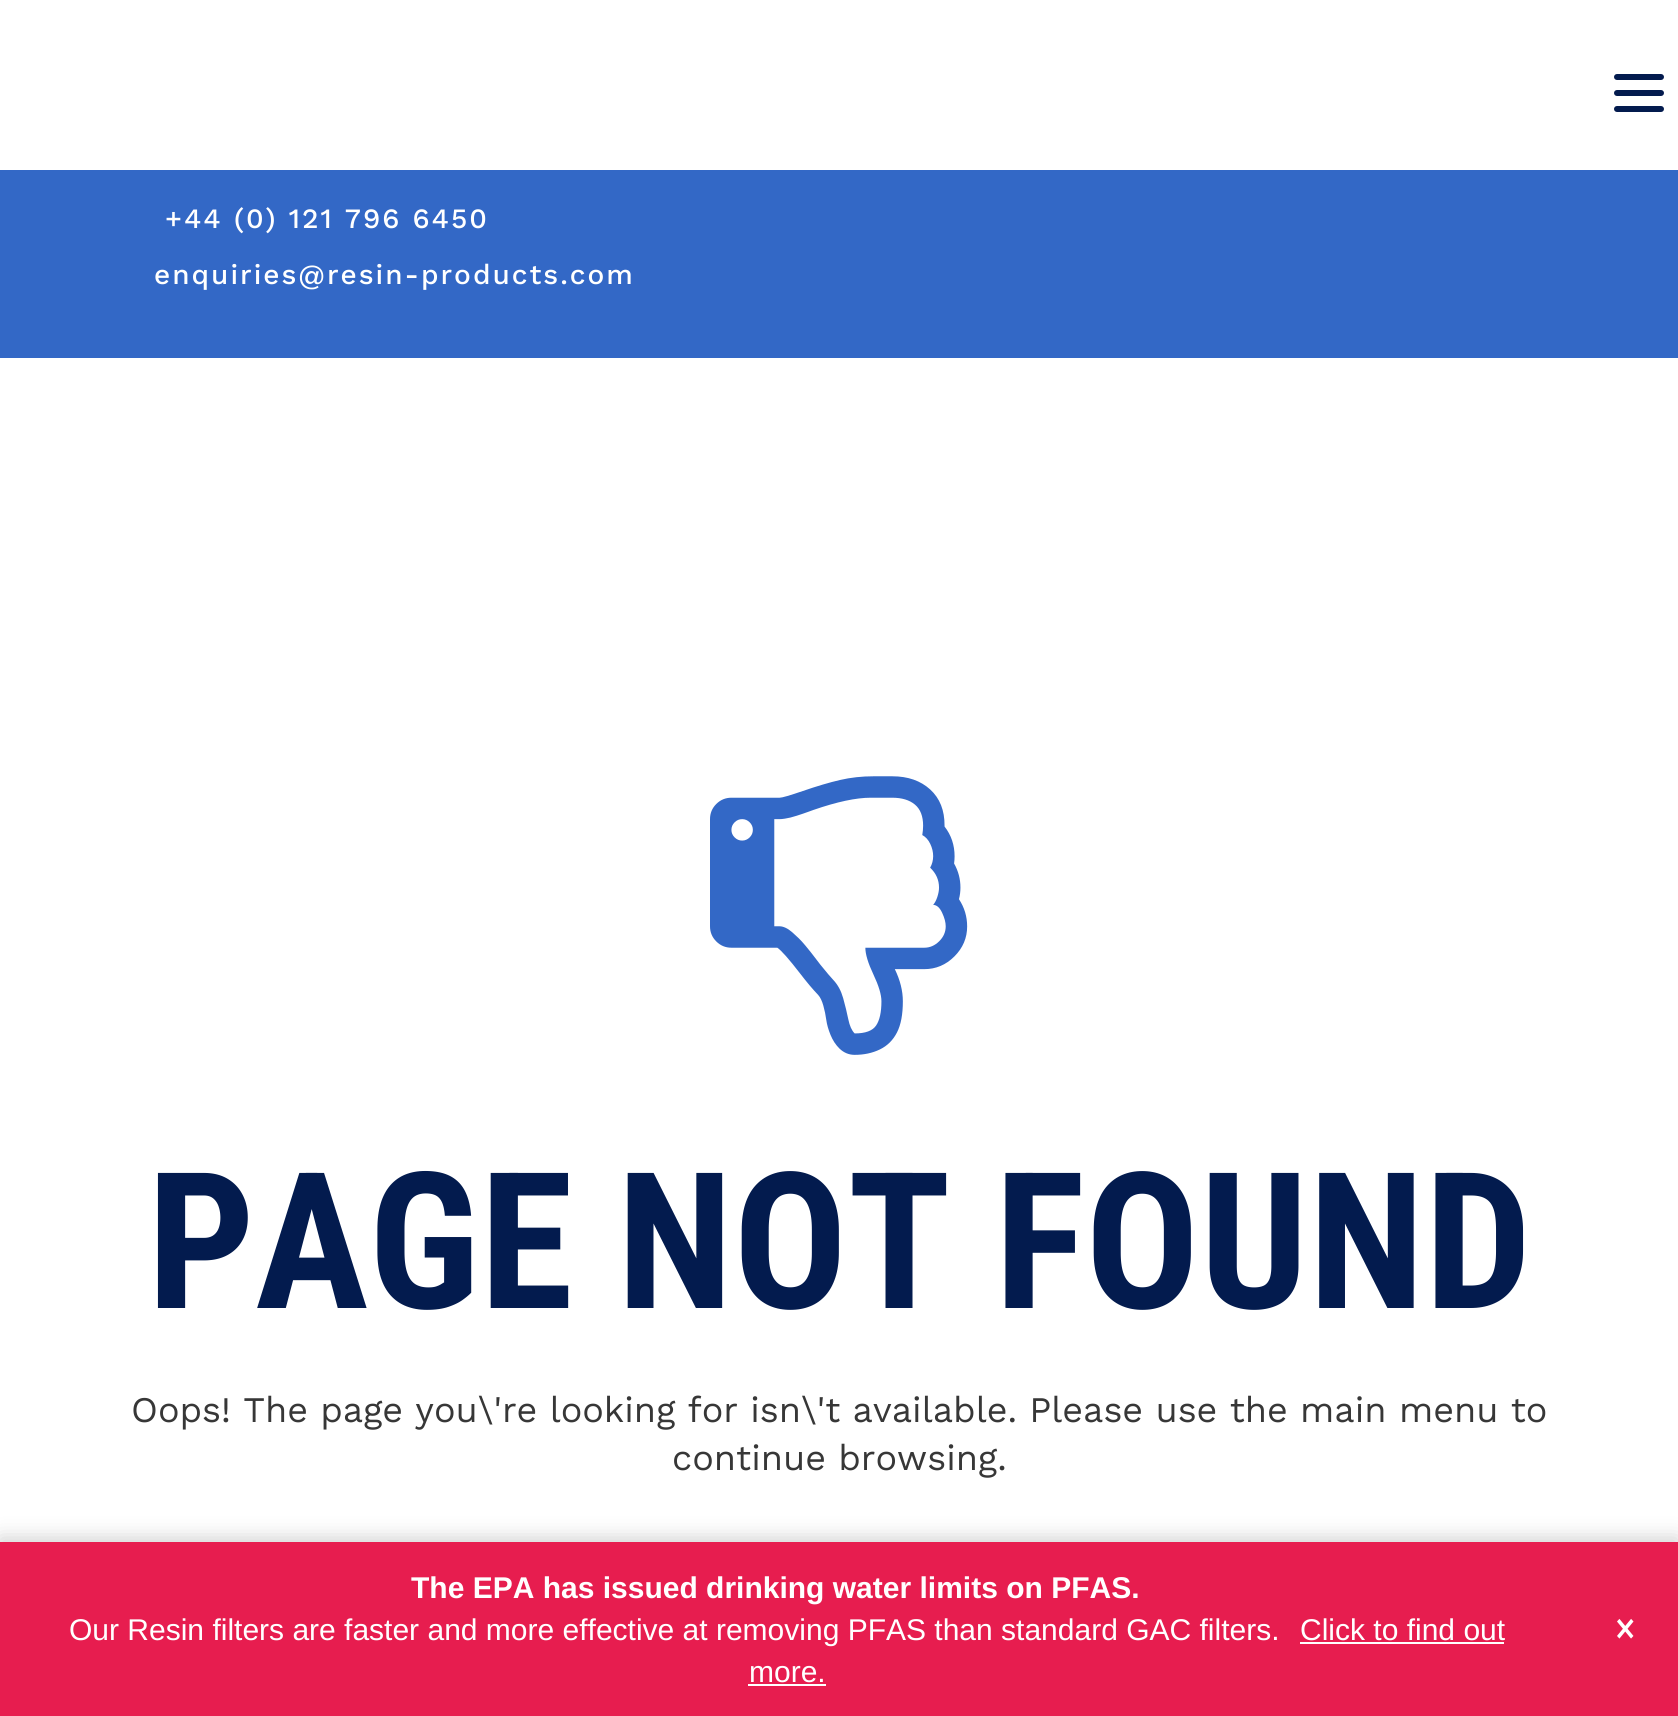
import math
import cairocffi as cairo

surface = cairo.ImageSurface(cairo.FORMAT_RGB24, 1678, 1716)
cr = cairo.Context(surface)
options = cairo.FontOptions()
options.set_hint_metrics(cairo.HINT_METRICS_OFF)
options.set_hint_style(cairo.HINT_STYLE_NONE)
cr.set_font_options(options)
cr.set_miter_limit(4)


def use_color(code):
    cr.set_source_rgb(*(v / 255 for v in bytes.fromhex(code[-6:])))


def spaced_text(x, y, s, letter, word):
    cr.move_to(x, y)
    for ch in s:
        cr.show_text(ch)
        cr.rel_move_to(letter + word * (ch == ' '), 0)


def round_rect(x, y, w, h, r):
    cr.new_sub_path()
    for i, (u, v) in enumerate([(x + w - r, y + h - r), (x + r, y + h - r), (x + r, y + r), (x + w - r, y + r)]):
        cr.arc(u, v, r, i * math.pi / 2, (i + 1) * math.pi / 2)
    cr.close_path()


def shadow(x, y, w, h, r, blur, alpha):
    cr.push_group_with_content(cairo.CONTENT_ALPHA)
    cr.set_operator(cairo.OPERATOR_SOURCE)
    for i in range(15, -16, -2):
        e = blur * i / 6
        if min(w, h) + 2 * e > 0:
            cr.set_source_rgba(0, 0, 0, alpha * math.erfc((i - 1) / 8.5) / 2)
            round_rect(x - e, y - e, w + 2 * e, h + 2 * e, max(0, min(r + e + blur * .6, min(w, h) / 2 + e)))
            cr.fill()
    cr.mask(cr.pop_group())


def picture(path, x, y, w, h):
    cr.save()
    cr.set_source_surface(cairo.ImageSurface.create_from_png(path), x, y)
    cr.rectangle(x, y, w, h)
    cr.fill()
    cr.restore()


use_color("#ffffff")
cr.paint()
use_color("#031b4e")
round_rect(1614, 90, 50, 6, 3)
cr.fill()
round_rect(1614, 74, 50, 6, 3)
cr.fill()
round_rect(1614, 106, 50, 6, 3)
cr.fill()
use_color("#3368c6")
cr.rectangle(0, 170, 1678, 188)
cr.fill()
cr.select_font_face("Work Sans Medium")
cr.set_font_size(28)
use_color("#ffffff")
spaced_text(165, 228, "+44 (0) 121 796 6450", 2, 0)
spaced_text(154, 284, "enquiries@resin-products.com", 2, 0)
picture("img1.png", 710, 776, 258, 279)
cr.select_font_face("Roboto Condensed", cairo.FONT_SLANT_NORMAL, cairo.FONT_WEIGHT_BOLD)
cr.set_font_size(190)
use_color("#031b4e")
cr.move_to(147, 1308)
cr.show_text("PAGE NOT FOUND")
cr.select_font_face("Work Sans")
cr.set_font_size(36)
use_color("#373737")
cr.move_to(131, 1422)
cr.show_text("Oops! The page you\\'re looking for isn\\'t available. Please use the main menu to")
cr.move_to(672, 1470)
cr.show_text("continue browsing.")
use_color("#000000")
shadow(0, 1538, 1678, 174, 0, 10, 0.18)
use_color("#e71d4f")
cr.rectangle(0, 1542, 1678, 174)
cr.fill()
cr.select_font_face("Liberation Sans", cairo.FONT_SLANT_NORMAL, cairo.FONT_WEIGHT_BOLD)
cr.set_font_size(30)
use_color("#ffffff")
cr.move_to(411, 1598)
cr.show_text("The EPA has issued drinking water limits on PFAS.")
cr.select_font_face("Liberation Sans")
cr.move_to(69, 1640)
cr.show_text("Our Resin filters are faster and more effective at removing PFAS than standard GAC filters.")
cr.move_to(1300, 1640)
cr.show_text("Click to find out")
cr.rectangle(1300, 1642, 204, 2)
cr.fill()
cr.move_to(749, 1682)
cr.show_text("more.")
cr.rectangle(748, 1684, 78, 2)
cr.fill()
cr.select_font_face("Roboto Condensed")
cr.set_font_size(44)
spaced_text(1615, 1643, "×", 2, 0)
surface.write_to_png("result.png")
